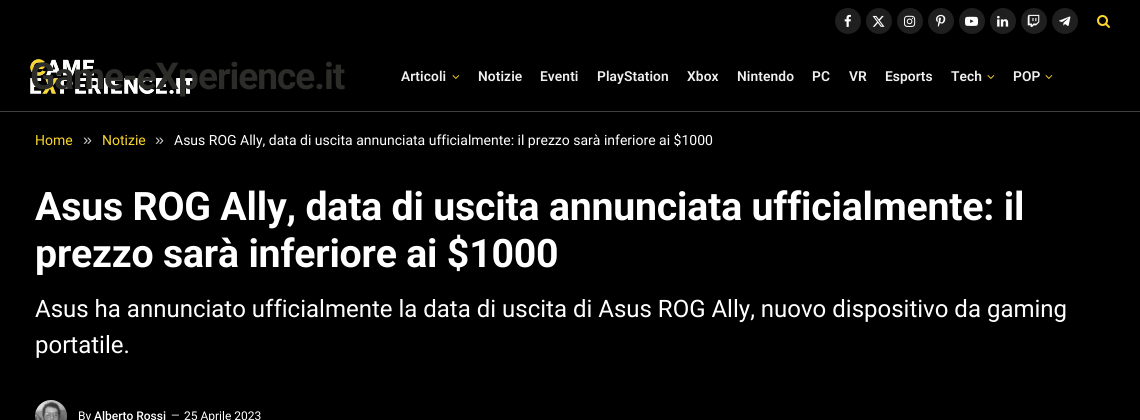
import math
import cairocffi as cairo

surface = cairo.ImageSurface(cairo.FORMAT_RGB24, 1140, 420)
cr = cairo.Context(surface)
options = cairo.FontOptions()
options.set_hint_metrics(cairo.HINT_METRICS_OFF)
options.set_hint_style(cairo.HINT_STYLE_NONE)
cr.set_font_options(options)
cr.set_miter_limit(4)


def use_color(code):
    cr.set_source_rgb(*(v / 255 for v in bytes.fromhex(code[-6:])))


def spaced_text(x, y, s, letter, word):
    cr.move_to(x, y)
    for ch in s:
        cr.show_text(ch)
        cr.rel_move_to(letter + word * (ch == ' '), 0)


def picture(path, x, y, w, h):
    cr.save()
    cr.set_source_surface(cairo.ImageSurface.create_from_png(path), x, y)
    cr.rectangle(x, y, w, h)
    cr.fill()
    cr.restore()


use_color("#000000")
cr.paint()
use_color("#1f1f1f")
cr.arc(848, 21, 13, 0, 2 * math.pi)
cr.fill()
picture("img1.png", 844, 14, 7, 13)
cr.arc(879, 21, 13, 0, 2 * math.pi)
cr.fill()
picture("img2.png", 872, 15, 13, 12)
cr.arc(910, 21, 13, 0, 2 * math.pi)
cr.fill()
picture("img3.png", 904, 15, 12, 12)
cr.arc(941, 21, 13, 0, 2 * math.pi)
cr.fill()
picture("img4.png", 936, 14, 10, 13)
cr.arc(972, 21, 13, 0, 2 * math.pi)
cr.fill()
picture("img5.png", 965, 16, 13, 10)
cr.arc(1003, 21, 13, 0, 2 * math.pi)
cr.fill()
picture("img6.png", 997, 15, 12, 12)
cr.arc(1034, 21, 13, 0, 2 * math.pi)
cr.fill()
picture("img7.png", 1027, 14, 13, 13)
cr.arc(1065, 21, 13, 0, 2 * math.pi)
cr.fill()
picture("img8.png", 1059, 16, 12, 10)
picture("img9.png", 1097, 15, 13, 13)
use_color("#3f3f3f")
cr.rectangle(0, 111, 1140, 1)
cr.fill()
picture("img10.png", 30, 59, 165, 35)
cr.select_font_face("Roboto", cairo.FONT_SLANT_NORMAL, cairo.FONT_WEIGHT_BOLD)
cr.set_font_size(37)
use_color("#2c2c28")
spaced_text(30, 89, "Game-eXperience.it", -1, 0)
cr.select_font_face("Roboto SemiBold")
cr.set_font_size(13.75)
use_color("#f0f0f0")
spaced_text(401, 81, "Articoli", 0.1, 0)
picture("img11.png", 452, 75, 8, 4)
spaced_text(478, 81, "Notizie", 0.1, 0)
spaced_text(540, 81, "Eventi", 0.1, 0)
spaced_text(597, 81, "PlayStation", 0.1, 0)
spaced_text(687, 81, "Xbox", 0.1, 0)
spaced_text(737, 81, "Nintendo", 0.1, 0)
spaced_text(812, 81, "PC", 0.1, 0)
spaced_text(849, 81, "VR", 0.1, 0)
spaced_text(885, 81, "Esports", 0.1, 0)
spaced_text(951, 81, "Tech", 0.1, 0)
picture("img11.png", 987, 75, 8, 4)
spaced_text(1013, 81, "POP", 0.1, 0)
picture("img11.png", 1045, 75, 8, 4)
cr.select_font_face("Roboto")
cr.set_font_size(14)
use_color("#fad62c")
cr.move_to(35, 145)
cr.show_text("Home")
cr.select_font_face("Liberation Sans")
cr.set_font_size(16)
use_color("#cccccc")
cr.move_to(83, 145)
cr.show_text("»")
cr.select_font_face("Roboto")
cr.set_font_size(14)
use_color("#fad62c")
cr.move_to(102, 145)
cr.show_text("Notizie")
cr.select_font_face("Liberation Sans")
cr.set_font_size(16)
use_color("#cccccc")
cr.move_to(155, 145)
cr.show_text("»")
cr.select_font_face("Roboto")
cr.set_font_size(14)
use_color("#ffffff")
cr.move_to(174, 145)
cr.show_text("Asus ROG Ally, data di uscita annunciata ufficialmente: il prezzo sarà inferiore ai $1000")
cr.select_font_face("Roboto", cairo.FONT_SLANT_NORMAL, cairo.FONT_WEIGHT_BOLD)
cr.set_font_size(39.25)
spaced_text(35, 220, "Asus ROG Ally, data di uscita annunciata ufficialmente: il", -0.2, 0)
spaced_text(35, 267, "prezzo sarà inferiore ai $1000", -0.2, 0)
cr.select_font_face("Roboto")
cr.set_font_size(24)
cr.move_to(35, 317)
cr.show_text("Asus ha annunciato ufficialmente la data di uscita di Asus ROG Ally, nuovo dispositivo da gaming")
cr.move_to(35, 353)
cr.show_text("portatile.")
picture("img12.png", 35, 400, 32, 20)
cr.set_font_size(12)
cr.move_to(78, 420)
cr.show_text("By")
cr.select_font_face("Roboto Medium")
cr.move_to(94, 420)
cr.show_text("Alberto Rossi")
cr.select_font_face("Roboto")
cr.set_font_size(11)
cr.move_to(171, 419)
cr.show_text("—")
cr.set_font_size(12)
cr.move_to(184, 420)
cr.show_text("25 Aprile 2023")
surface.write_to_png("result.png")
